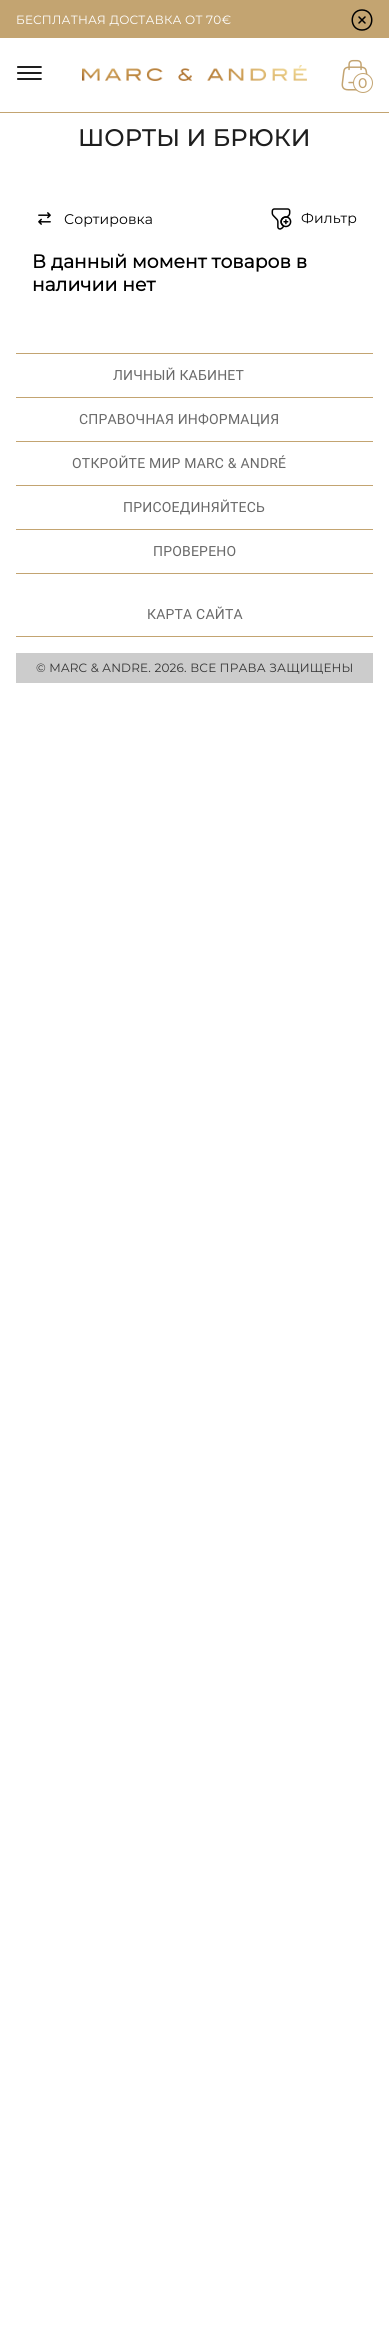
import math
import cairocffi as cairo

surface = cairo.ImageSurface(cairo.FORMAT_RGB24, 389, 2331)
cr = cairo.Context(surface)
options = cairo.FontOptions()
options.set_hint_metrics(cairo.HINT_METRICS_OFF)
options.set_hint_style(cairo.HINT_STYLE_NONE)
cr.set_font_options(options)
cr.set_miter_limit(4)


def use_color(code):
    cr.set_source_rgb(*(v / 255 for v in bytes.fromhex(code[-6:])))


def spaced_text(x, y, s, letter, word):
    cr.move_to(x, y)
    for ch in s:
        cr.show_text(ch)
        cr.rel_move_to(letter + word * (ch == ' '), 0)


def picture(path, x, y, w, h):
    cr.save()
    cr.set_source_surface(cairo.ImageSurface.create_from_png(path), x, y)
    cr.rectangle(x, y, w, h)
    cr.fill()
    cr.restore()


use_color("#ffffff")
cr.paint()
use_color("#c3a471")
cr.rectangle(0, 0, 389, 38)
cr.fill()
cr.select_font_face("Montserrat")
cr.set_font_size(12)
use_color("#ffffff")
spaced_text(16, 24, "БЕСПЛАТНАЯ ДОСТАВКА ОТ 70€", 0.2, 0)
cr.new_path()
cr.move_to(359, 23)
cr.line_to(365, 17)
cr.move_to(365, 23)
cr.line_to(359, 17)
cr.move_to(362, 30)
cr.curve_to(375, 30, 375, 10, 362, 10)
cr.curve_to(349, 10, 349, 30, 362, 30)
cr.close_path()
use_color("#000000")
cr.set_line_width(1.5)
cr.set_line_cap(cairo.LINE_CAP_ROUND)
cr.set_line_join(cairo.LINE_JOIN_ROUND)
cr.stroke()
use_color("#c3a471")
cr.rectangle(0, 112, 389, 1)
cr.fill()
picture("img1.png", 17, 66, 25, 14)
picture("img2.png", 82, 65, 225, 16)
picture("img3.png", 341, 59, 27, 32)
use_color("#ffffff")
cr.arc(363, 83, 9.5, 0, 2 * math.pi)
cr.fill_preserve()
use_color("#c3a471")
cr.set_line_width(1)
cr.set_line_cap(cairo.LINE_CAP_BUTT)
cr.set_line_join(cairo.LINE_JOIN_MITER)
cr.stroke()
cr.select_font_face("Montserrat Medium")
cr.set_font_size(14)
cr.move_to(358, 88)
cr.show_text("0")
cr.set_font_size(24)
use_color("#1e1e1e")
cr.move_to(78, 146)
cr.show_text("ШОРТЫ И БРЮКИ")
picture("img4.png", 38, 212, 13, 13)
cr.select_font_face("Montserrat")
cr.set_font_size(14)
use_color("#000000")
spaced_text(64, 224, "Сортировка", 0.1, 0)
picture("img5.png", 271, 208, 21, 22)
spaced_text(301, 223, "Фильтр", 0.1, 0)
cr.select_font_face("Montserrat", cairo.FONT_SLANT_NORMAL, cairo.FONT_WEIGHT_BOLD)
cr.set_font_size(18.75)
cr.move_to(32, 268)
cr.show_text("В данный момент товаров в")
cr.move_to(32, 291)
cr.show_text("наличии нет")
use_color("#c3a471")
cr.rectangle(16, 353, 357, 1)
cr.fill()
cr.rectangle(16, 397, 357, 1)
cr.fill()
cr.select_font_face("Roboto")
cr.set_font_size(14)
use_color("#696969")
spaced_text(113, 380, "ЛИЧНЫЙ КАБИНЕТ", 0.2, 0)
use_color("#c3a471")
cr.rectangle(16, 441, 357, 1)
cr.fill()
use_color("#696969")
spaced_text(79, 424, "СПРАВОЧНАЯ ИНФОРМАЦИЯ", 0.2, 0)
use_color("#c3a471")
cr.rectangle(16, 485, 357, 1)
cr.fill()
use_color("#696969")
spaced_text(72, 468, "ОТКРОЙТЕ МИР MARC & ANDRÉ", 0.2, 0)
use_color("#c3a471")
cr.rectangle(16, 529, 357, 1)
cr.fill()
use_color("#696969")
spaced_text(123, 512, "ПРИСОЕДИНЯЙТЕСЬ", 0.2, 0)
use_color("#c3a471")
cr.rectangle(16, 573, 357, 1)
cr.fill()
use_color("#696969")
spaced_text(153, 556, "ПРОВЕРЕНО", 0.2, 0)
use_color("#c3a471")
cr.rectangle(16, 636, 357, 1)
cr.fill()
use_color("#696969")
spaced_text(147, 619, "КАРТА САЙТА", 0.2, 0)
use_color("#cccccc")
cr.rectangle(16, 653, 357, 30)
cr.fill()
cr.select_font_face("Montserrat")
cr.set_font_size(12)
use_color("#333333")
spaced_text(36, 672, "© MARC & ANDRE. 2026. ВСЕ ПРАВА ЗАЩИЩЕНЫ", 0.2, 0)
surface.write_to_png("result.png")
